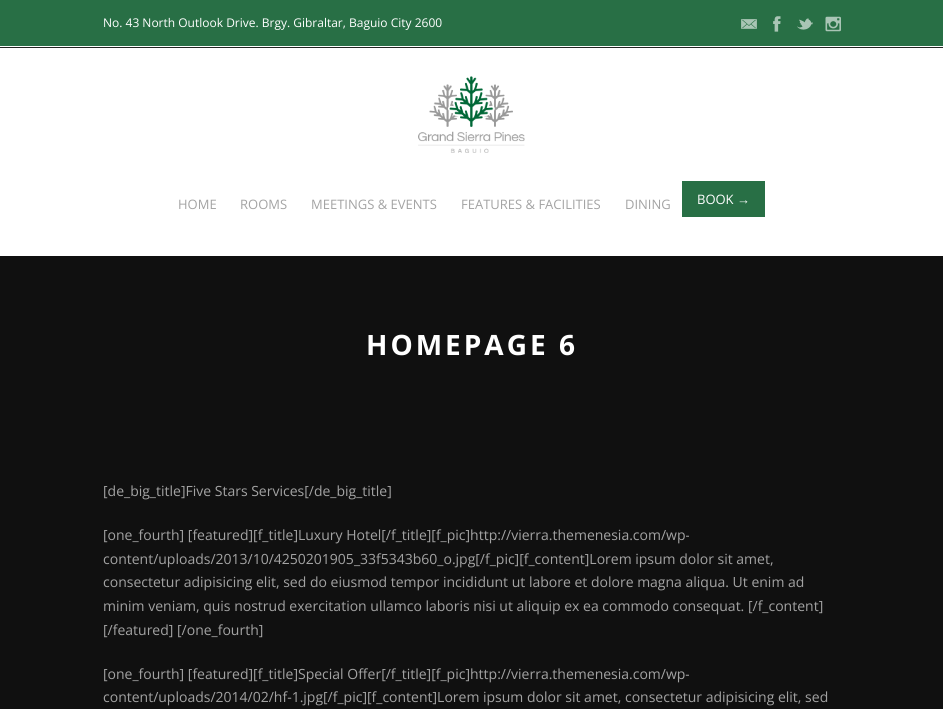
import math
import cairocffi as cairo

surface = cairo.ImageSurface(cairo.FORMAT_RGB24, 943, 709)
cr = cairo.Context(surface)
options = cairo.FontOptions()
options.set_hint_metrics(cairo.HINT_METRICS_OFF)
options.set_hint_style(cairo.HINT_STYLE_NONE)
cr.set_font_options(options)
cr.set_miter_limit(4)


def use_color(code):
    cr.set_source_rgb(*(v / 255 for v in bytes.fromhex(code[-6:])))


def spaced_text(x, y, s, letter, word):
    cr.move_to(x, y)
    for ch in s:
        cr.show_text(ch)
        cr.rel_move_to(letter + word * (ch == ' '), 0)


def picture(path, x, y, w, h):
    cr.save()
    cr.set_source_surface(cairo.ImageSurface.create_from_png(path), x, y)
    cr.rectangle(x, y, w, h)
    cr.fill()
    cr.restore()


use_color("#101010")
cr.paint()
use_color("#ffffff")
cr.rectangle(0, 46, 943, 210)
cr.fill()
use_color("#286f45")
cr.rectangle(0, 0, 943, 46)
cr.fill()
cr.select_font_face("Open Sans")
cr.set_font_size(12)
use_color("#ffffff")
cr.move_to(103, 27)
cr.show_text("No. 43 North Outlook Drive. Brgy. Gibraltar, Baguio City 2600")
picture("img1.png", 741, 19, 16, 10)
picture("img2.png", 773, 16, 8, 16)
picture("img3.png", 797, 18, 16, 12)
picture("img4.png", 825, 16, 16, 16)
use_color("#232323")
cr.rectangle(0, 47, 943, 1)
cr.fill()
picture("img5.png", 418, 76, 107, 77)
cr.set_font_size(13)
use_color("#a3a3a3")
cr.move_to(178, 209)
cr.show_text("HOME")
cr.move_to(240, 209)
cr.show_text("ROOMS")
cr.move_to(311, 209)
cr.show_text("MEETINGS & EVENTS")
cr.move_to(461, 209)
cr.show_text("FEATURES & FACILITIES")
cr.move_to(625, 209)
cr.show_text("DINING")
use_color("#286f45")
cr.rectangle(682, 181, 83, 36)
cr.fill()
use_color("#ffffff")
cr.move_to(697, 204)
cr.show_text("BOOK")
cr.select_font_face("Liberation Serif")
cr.move_to(737, 204)
cr.show_text("→")
cr.select_font_face("Open Sans", cairo.FONT_SLANT_NORMAL, cairo.FONT_WEIGHT_BOLD)
cr.set_font_size(28)
spaced_text(366, 355, "HOMEPAGE 6", 3, 0)
cr.select_font_face("Open Sans")
cr.set_font_size(14)
use_color("#a3a3a3")
cr.move_to(103, 496)
cr.show_text("[de_big_title]Five Stars Services[/de_big_title]")
cr.move_to(103, 540)
cr.show_text("[one_fourth] [featured][f_title]Luxury Hotel[/f_title][f_pic]http://vierra.themenesia.com/wp-")
cr.move_to(103, 564)
cr.show_text("content/uploads/2013/10/4250201905_33f5343b60_o.jpg[/f_pic][f_content]Lorem ipsum dolor sit amet,")
cr.move_to(103, 587)
cr.show_text("consectetur adipisicing elit, sed do eiusmod tempor incididunt ut labore et dolore magna aliqua. Ut enim ad")
cr.move_to(103, 611)
cr.show_text("minim veniam, quis nostrud exercitation ullamco laboris nisi ut aliquip ex ea commodo consequat. [/f_content]")
cr.move_to(103, 635)
cr.show_text("[/featured] [/one_fourth]")
cr.move_to(103, 679)
cr.show_text("[one_fourth] [featured][f_title]Special Offer[/f_title][f_pic]http://vierra.themenesia.com/wp-")
cr.move_to(103, 702)
cr.show_text("content/uploads/2014/02/hf-1.jpg[/f_pic][f_content]Lorem ipsum dolor sit amet, consectetur adipisicing elit, sed")
surface.write_to_png("result.png")
